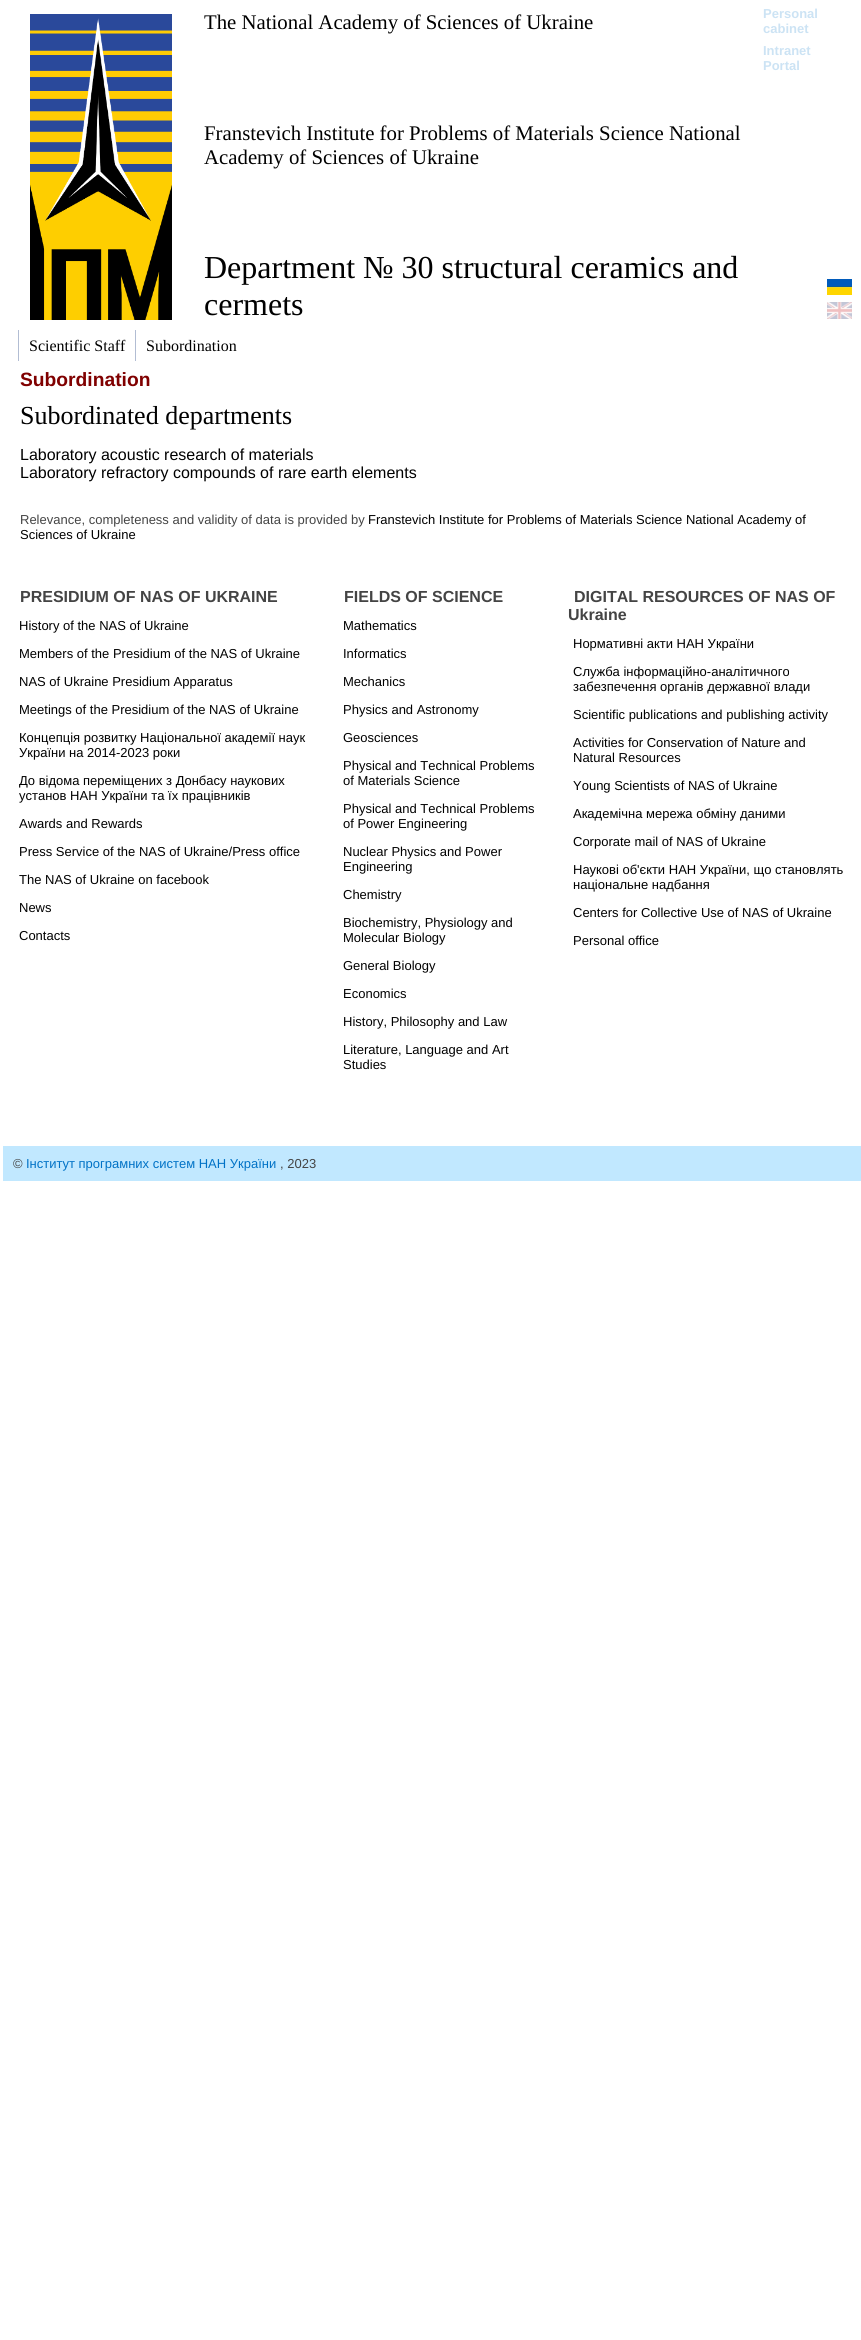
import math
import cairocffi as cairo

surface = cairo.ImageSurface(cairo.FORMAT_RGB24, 861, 2340)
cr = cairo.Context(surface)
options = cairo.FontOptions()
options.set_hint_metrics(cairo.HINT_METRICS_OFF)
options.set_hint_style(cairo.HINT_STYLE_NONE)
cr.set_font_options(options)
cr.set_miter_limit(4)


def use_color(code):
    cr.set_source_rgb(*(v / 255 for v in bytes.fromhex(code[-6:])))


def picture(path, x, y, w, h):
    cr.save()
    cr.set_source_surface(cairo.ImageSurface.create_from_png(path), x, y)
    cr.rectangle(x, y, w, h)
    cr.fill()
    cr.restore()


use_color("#ffffff")
cr.paint()
picture("img1.png", 30, 14, 142, 306)
cr.select_font_face("Liberation Serif")
cr.set_font_size(20.8)
use_color("#000000")
cr.move_to(204, 29)
cr.show_text("The National Academy of Sciences of Ukraine")
cr.select_font_face("Liberation Sans", cairo.FONT_SLANT_NORMAL, cairo.FONT_WEIGHT_BOLD)
cr.set_font_size(13)
use_color("#cce3f4")
cr.move_to(763, 18)
cr.show_text("Personal")
cr.move_to(763, 33)
cr.show_text("cabinet")
cr.move_to(763, 55)
cr.show_text("Intranet")
cr.move_to(763, 70)
cr.show_text("Portal")
cr.select_font_face("Liberation Serif")
cr.set_font_size(20.8)
use_color("#000000")
cr.move_to(204, 140)
cr.show_text("Franstevich Institute for Problems of Materials Science National")
cr.move_to(204, 164)
cr.show_text("Academy of Sciences of Ukraine")
picture("img2.png", 827, 279, 25, 16)
picture("img3.png", 827, 302, 25, 17)
cr.set_font_size(32)
cr.move_to(204, 278)
cr.show_text("Department № 30 structural ceramics and")
cr.move_to(204, 315)
cr.show_text("cermets")
use_color("#b2bdd3")
cr.rectangle(18, 330, 1, 31)
cr.fill()
cr.set_font_size(16)
use_color("#000000")
cr.move_to(29, 351)
cr.show_text("Scientific Staff")
use_color("#b2bdd3")
cr.rectangle(135, 330, 1, 31)
cr.fill()
use_color("#000000")
cr.move_to(146, 351)
cr.show_text("Subordination")
cr.select_font_face("Liberation Sans", cairo.FONT_SLANT_NORMAL, cairo.FONT_WEIGHT_BOLD)
cr.set_font_size(19.25)
use_color("#800000")
cr.move_to(20, 386)
cr.show_text("Subordination")
cr.select_font_face("Liberation Serif")
cr.set_font_size(26)
use_color("#000000")
cr.move_to(20, 424)
cr.show_text("Subordinated departments")
cr.select_font_face("Liberation Sans")
cr.set_font_size(16)
cr.move_to(20, 460)
cr.show_text("Laboratory аcoustic research of materials")
cr.move_to(20, 478)
cr.show_text("Laboratory refractory compounds of rare earth elements")
cr.set_font_size(13)
use_color("#444444")
cr.move_to(20, 524)
cr.show_text("Relevance, completeness and validity of data is provided by")
use_color("#000000")
cr.move_to(368, 524)
cr.show_text("Franstevich Institute for Problems of Materials Science National Academy of")
cr.move_to(20, 539)
cr.show_text("Sciences of Ukraine")
cr.select_font_face("Liberation Sans", cairo.FONT_SLANT_NORMAL, cairo.FONT_WEIGHT_BOLD)
cr.set_font_size(16)
use_color("#444444")
cr.move_to(20, 602)
cr.show_text("PRESIDIUM OF NAS OF UKRAINE")
cr.select_font_face("Liberation Sans")
cr.set_font_size(13)
use_color("#000000")
cr.move_to(19, 630)
cr.show_text("History of the NAS of Ukraine")
cr.move_to(19, 658)
cr.show_text("Members of the Presidium of the NAS of Ukraine")
cr.move_to(19, 686)
cr.show_text("NAS of Ukraine Presidium Apparatus")
cr.move_to(19, 714)
cr.show_text("Meetings of the Presidium of the NAS of Ukraine")
cr.move_to(19, 742)
cr.show_text("Концепція розвитку Національної академії наук")
cr.move_to(19, 757)
cr.show_text("України на 2014-2023 роки")
cr.move_to(19, 785)
cr.show_text("До відома переміщених з Донбасу наукових")
cr.move_to(19, 800)
cr.show_text("установ НАН України та їх працівників")
cr.move_to(19, 828)
cr.show_text("Awards and Rewards")
cr.move_to(19, 856)
cr.show_text("Press Service of the NAS of Ukraine/Press office")
cr.move_to(19, 884)
cr.show_text("The NAS of Ukraine on facebook")
cr.move_to(19, 912)
cr.show_text("News")
cr.move_to(19, 940)
cr.show_text("Сontacts")
cr.select_font_face("Liberation Sans", cairo.FONT_SLANT_NORMAL, cairo.FONT_WEIGHT_BOLD)
cr.set_font_size(16)
use_color("#444444")
cr.move_to(344, 602)
cr.show_text("FIELDS OF SCIENCE")
cr.select_font_face("Liberation Sans")
cr.set_font_size(13)
use_color("#000000")
cr.move_to(343, 630)
cr.show_text("Mathematics")
cr.move_to(343, 658)
cr.show_text("Informatics")
cr.move_to(343, 686)
cr.show_text("Mechanics")
cr.move_to(343, 714)
cr.show_text("Physics and Astronomy")
cr.move_to(343, 742)
cr.show_text("Geosciences")
cr.move_to(343, 770)
cr.show_text("Physical and Technical Problems")
cr.move_to(343, 785)
cr.show_text("of Materials Science")
cr.move_to(343, 813)
cr.show_text("Physical and Technical Problems")
cr.move_to(343, 828)
cr.show_text("of Power Engineering")
cr.move_to(343, 856)
cr.show_text("Nuclear Physics and Power")
cr.move_to(343, 871)
cr.show_text("Engineering")
cr.move_to(343, 899)
cr.show_text("Chemistry")
cr.move_to(343, 927)
cr.show_text("Biochemistry, Physiology and")
cr.move_to(343, 942)
cr.show_text("Molecular Biology")
cr.move_to(343, 970)
cr.show_text("General Biology")
cr.move_to(343, 998)
cr.show_text("Economics")
cr.move_to(343, 1026)
cr.show_text("History, Philosophy and Law")
cr.move_to(343, 1054)
cr.show_text("Literature, Language and Art")
cr.move_to(343, 1069)
cr.show_text("Studies")
cr.select_font_face("Liberation Sans", cairo.FONT_SLANT_NORMAL, cairo.FONT_WEIGHT_BOLD)
cr.set_font_size(16)
use_color("#444444")
cr.move_to(574, 602)
cr.show_text("DIGITAL RESOURCES OF NAS OF")
cr.move_to(568, 620)
cr.show_text("Ukraine")
cr.select_font_face("Liberation Sans")
cr.set_font_size(13)
use_color("#000000")
cr.move_to(573, 648)
cr.show_text("Нормативні акти НАН України")
cr.move_to(573, 676)
cr.show_text("Служба інформаційно-аналітичного")
cr.move_to(573, 691)
cr.show_text("забезпечення органів державної влади")
cr.move_to(573, 719)
cr.show_text("Scientific publications and publishing activity")
cr.move_to(573, 747)
cr.show_text("Activities for Conservation of Nature and")
cr.move_to(573, 762)
cr.show_text("Natural Resources")
cr.move_to(573, 790)
cr.show_text("Young Scientists of NAS of Ukraine")
cr.move_to(573, 818)
cr.show_text("Академічна мережа обміну даними")
cr.move_to(573, 846)
cr.show_text("Corporate mail of NAS of Ukraine")
cr.move_to(573, 874)
cr.show_text("Наукові об'єкти НАН України, що становлять")
cr.move_to(573, 889)
cr.show_text("національне надбання")
cr.move_to(573, 917)
cr.show_text("Centers for Collective Use of NAS of Ukraine")
cr.move_to(573, 945)
cr.show_text("Personal office")
use_color("#c1e8ff")
cr.rectangle(3, 1146, 858, 35)
cr.fill()
use_color("#444444")
cr.move_to(13, 1168)
cr.show_text("©")
use_color("#0072c6")
cr.move_to(26, 1168)
cr.show_text("Інститут програмних систем НАН України")
use_color("#444444")
cr.move_to(280, 1168)
cr.show_text(", 2023")
surface.write_to_png("result.png")
